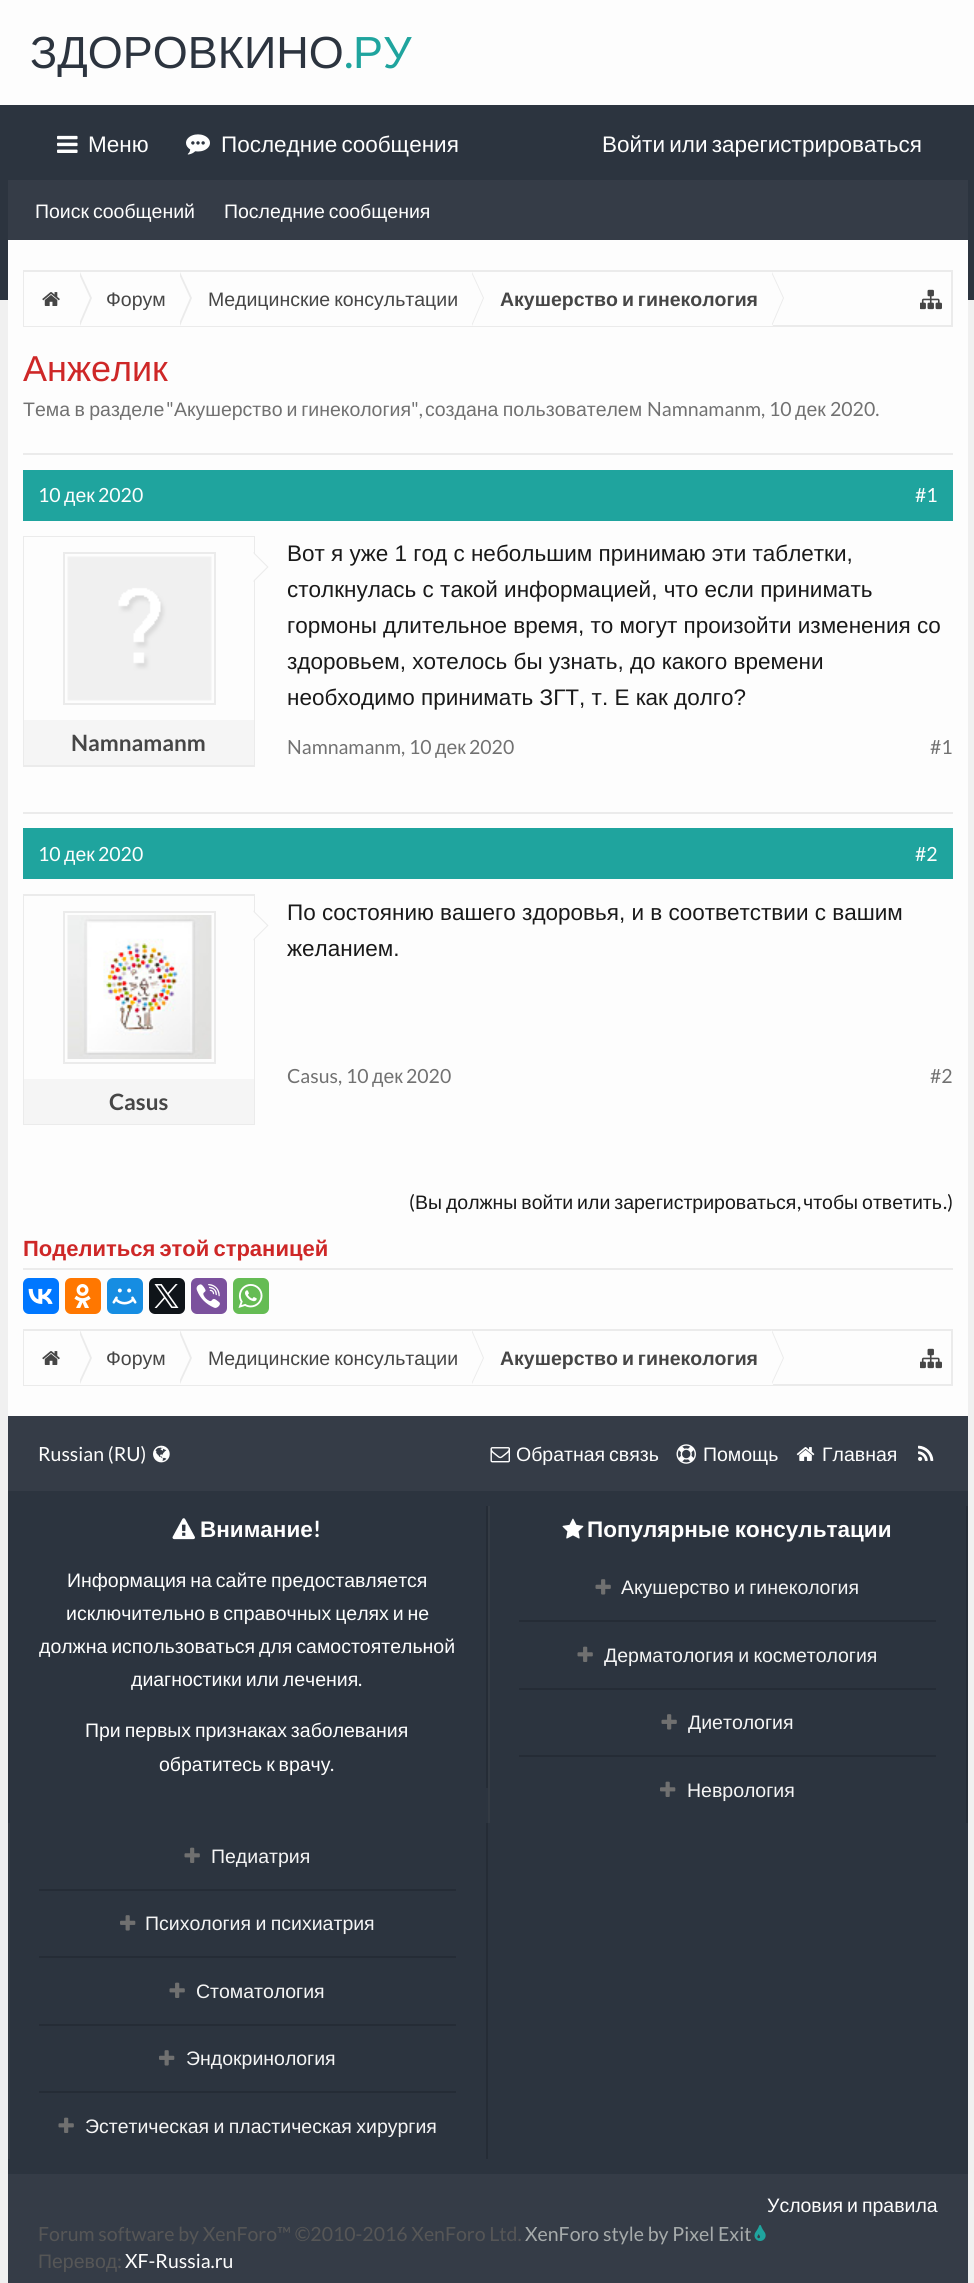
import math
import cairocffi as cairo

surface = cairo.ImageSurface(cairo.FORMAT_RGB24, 974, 2283)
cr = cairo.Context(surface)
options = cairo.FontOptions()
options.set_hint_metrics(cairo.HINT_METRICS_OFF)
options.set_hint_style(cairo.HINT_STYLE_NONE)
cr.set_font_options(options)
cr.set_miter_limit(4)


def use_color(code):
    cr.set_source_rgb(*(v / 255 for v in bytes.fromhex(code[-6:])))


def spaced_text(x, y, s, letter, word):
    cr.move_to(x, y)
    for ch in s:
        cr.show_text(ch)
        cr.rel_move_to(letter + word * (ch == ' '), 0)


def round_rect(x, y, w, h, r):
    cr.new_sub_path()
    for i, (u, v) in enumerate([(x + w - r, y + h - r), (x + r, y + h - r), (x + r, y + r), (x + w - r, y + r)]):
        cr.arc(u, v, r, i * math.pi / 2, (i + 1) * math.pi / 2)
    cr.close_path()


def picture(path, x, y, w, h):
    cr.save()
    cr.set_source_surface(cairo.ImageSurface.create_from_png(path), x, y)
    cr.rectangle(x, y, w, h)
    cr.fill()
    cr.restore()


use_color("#f0f0f0")
cr.paint()
use_color("#fdfdfd")
cr.rectangle(0, 0, 974, 105)
cr.fill()
cr.select_font_face("Liberation Sans")
cr.set_font_size(45)
use_color("#2c343f")
cr.move_to(30, 68)
cr.show_text("ЗДОРОВКИНО")
cr.select_font_face("Lato")
use_color("#1fa49e")
cr.move_to(344, 68)
cr.show_text(".")
cr.select_font_face("Liberation Sans")
cr.move_to(353, 68)
cr.show_text("РУ")
use_color("#2c343f")
cr.rectangle(0, 105, 974, 195)
cr.fill()
picture("img1.png", 57, 135, 21, 18)
cr.set_font_size(22.5)
use_color("#fefefe")
cr.move_to(88, 152)
cr.show_text("Меню")
picture("img2.png", 186, 134, 24, 21)
spaced_text(221, 152, "Последние сообщения", 0, -2)
spaced_text(602, 152, "Войти или зарегистрироваться", 0, -2)
use_color("#353c47")
cr.rectangle(8, 180, 960, 60)
cr.fill()
cr.set_font_size(19.5)
use_color("#fefefe")
spaced_text(35, 218, "Поиск сообщений", 0, -1.5)
spaced_text(224, 218, "Последние сообщения", 0, -1.5)
use_color("#fdfdfd")
cr.rectangle(8, 240, 960, 1176)
cr.fill()
cr.rectangle(24, 271, 928, 55)
use_color("#ebebeb")
cr.stroke()
use_color("#fdfdfd")
cr.rectangle(24, 272, 56, 54)
cr.fill()
picture("img3.png", 42, 292, 18, 14)
cr.rectangle(80, 325, 693, 1)
cr.fill()
use_color("#ebebeb")
cr.new_path()
cr.move_to(80, 326)
cr.line_to(80, 272)
cr.line_to(92, 298)
cr.close_path()
cr.fill()
use_color("#fdfdfd")
cr.new_path()
cr.move_to(78, 326)
cr.line_to(78, 272)
cr.line_to(90, 298)
cr.close_path()
cr.fill()
use_color("#464646")
cr.move_to(106, 306)
cr.show_text("Форум")
use_color("#ebebeb")
cr.new_path()
cr.move_to(180, 326)
cr.line_to(180, 272)
cr.line_to(192, 298)
cr.close_path()
cr.fill()
use_color("#fdfdfd")
cr.new_path()
cr.move_to(178, 326)
cr.line_to(178, 272)
cr.line_to(190, 298)
cr.close_path()
cr.fill()
use_color("#464646")
spaced_text(208, 306, "Медицинские консультации", 0, -1.5)
use_color("#ebebeb")
cr.new_path()
cr.move_to(472, 326)
cr.line_to(472, 272)
cr.line_to(484, 298)
cr.close_path()
cr.fill()
use_color("#fdfdfd")
cr.new_path()
cr.move_to(471, 326)
cr.line_to(471, 272)
cr.line_to(483, 298)
cr.close_path()
cr.fill()
cr.select_font_face("Liberation Sans", cairo.FONT_SLANT_NORMAL, cairo.FONT_WEIGHT_BOLD)
use_color("#464646")
spaced_text(500, 306, "Акушерство и гинекология", 0, -1.5)
use_color("#ebebeb")
cr.new_path()
cr.move_to(772, 326)
cr.line_to(772, 272)
cr.line_to(784, 298)
cr.close_path()
cr.fill()
use_color("#fdfdfd")
cr.new_path()
cr.move_to(771, 326)
cr.line_to(771, 272)
cr.line_to(783, 298)
cr.close_path()
cr.fill()
picture("img4.png", 920, 289, 22, 21)
cr.select_font_face("Liberation Sans")
cr.set_font_size(36)
use_color("#ce2727")
cr.move_to(23, 381)
cr.show_text("Анжелик")
cr.set_font_size(19.5)
use_color("#717171")
spaced_text(23, 416, "Тема в разделе", 0, -1)
cr.select_font_face("Lato")
cr.move_to(166, 416)
cr.show_text("\"")
cr.select_font_face("Liberation Sans")
spaced_text(174, 416, "Акушерство и гинекология", 0, -1.5)
cr.select_font_face("Lato")
cr.move_to(411, 416)
cr.show_text("\",")
cr.select_font_face("Liberation Sans")
spaced_text(425, 416, "создана пользователем", 0, -1)
cr.select_font_face("Lato")
cr.move_to(647, 416)
cr.show_text("Namnamanm, 10")
cr.select_font_face("Liberation Sans")
cr.move_to(795, 416)
cr.show_text("дек")
cr.select_font_face("Lato")
cr.move_to(830, 416)
cr.show_text("2020.")
use_color("#ebebeb")
cr.rectangle(23, 453, 930, 2)
cr.fill()
use_color("#1fa49e")
cr.rectangle(23, 470, 930, 51)
cr.fill()
use_color("#fefefe")
cr.move_to(38, 502)
cr.show_text("10")
cr.select_font_face("Liberation Sans")
cr.move_to(64, 502)
cr.show_text("дек")
cr.select_font_face("Lato")
cr.move_to(98, 502)
cr.show_text("2020")
cr.move_to(915, 502)
cr.show_text("#1")
cr.rectangle(24, 537, 230, 229)
use_color("#ebebeb")
cr.stroke()
use_color("#fdfdfd")
cr.rectangle(24, 537, 230, 183)
cr.fill()
cr.rectangle(64, 553, 151, 151)
use_color("#ebebeb")
cr.stroke()
picture("img5.png", 67, 556, 145, 145)
cr.new_path()
cr.move_to(253.5, 582)
cr.line_to(253.5, 552)
cr.line_to(268.5, 567)
cr.close_path()
cr.fill()
use_color("#fdfdfd")
cr.new_path()
cr.move_to(252, 582)
cr.line_to(252, 552)
cr.line_to(267, 567)
cr.close_path()
cr.fill()
use_color("#f5f5f5")
cr.rectangle(24, 720, 230, 45)
cr.fill()
cr.select_font_face("Lato", cairo.FONT_SLANT_NORMAL, cairo.FONT_WEIGHT_BOLD)
cr.set_font_size(22.5)
use_color("#464646")
cr.move_to(71, 751)
cr.show_text("Namnamanm")
cr.select_font_face("Liberation Sans")
use_color("#191919")
cr.move_to(287, 561)
cr.show_text("Вот я уже 1 год с небольшим принимаю эти таблетки,")
cr.move_to(287, 597)
cr.show_text("столкнулась с такой информацией, что если принимать")
cr.move_to(287, 633)
cr.show_text("гормоны длительное время, то могут произойти изменения со")
cr.move_to(287, 669)
cr.show_text("здоровьем, хотелось бы узнать, до какого времени")
cr.move_to(287, 705)
cr.show_text("необходимо принимать ЗГТ, т. Е как долго?")
cr.select_font_face("Lato")
cr.set_font_size(19.5)
use_color("#717171")
cr.move_to(287, 754)
cr.show_text("Namnamanm, 10")
cr.select_font_face("Liberation Sans")
cr.move_to(435, 754)
cr.show_text("дек")
cr.select_font_face("Lato")
cr.move_to(469, 754)
cr.show_text("2020")
cr.move_to(930, 754)
cr.show_text("#1")
use_color("#ebebeb")
cr.rectangle(23, 812, 930, 2)
cr.fill()
use_color("#1fa49e")
cr.rectangle(23, 828, 930, 51)
cr.fill()
use_color("#fefefe")
cr.move_to(38, 861)
cr.show_text("10")
cr.select_font_face("Liberation Sans")
cr.move_to(64, 861)
cr.show_text("дек")
cr.select_font_face("Lato")
cr.move_to(98, 861)
cr.show_text("2020")
cr.move_to(915, 861)
cr.show_text("#2")
cr.select_font_face("Liberation Sans")
cr.set_font_size(22.5)
use_color("#191919")
cr.move_to(287, 920)
cr.show_text("По состоянию вашего здоровья, и в соответствии с вашим")
cr.move_to(287, 956)
cr.show_text("желанием.")
cr.select_font_face("Lato")
cr.set_font_size(19.5)
use_color("#717171")
cr.move_to(287, 1083)
cr.show_text("Casus, 10")
cr.select_font_face("Liberation Sans")
cr.move_to(372, 1083)
cr.show_text("дек")
cr.select_font_face("Lato")
cr.move_to(406, 1083)
cr.show_text("2020")
cr.move_to(930, 1083)
cr.show_text("#2")
cr.rectangle(24, 895, 230, 229)
use_color("#ebebeb")
cr.stroke()
use_color("#fdfdfd")
cr.rectangle(24, 896, 230, 183)
cr.fill()
cr.rectangle(64, 912, 151, 151)
use_color("#ebebeb")
cr.stroke()
picture("img6.png", 67, 915, 145, 144)
cr.new_path()
cr.move_to(253.5, 940.5)
cr.line_to(253.5, 910.5)
cr.line_to(268.5, 925.5)
cr.close_path()
cr.fill()
use_color("#fdfdfd")
cr.new_path()
cr.move_to(252, 940.5)
cr.line_to(252, 910.5)
cr.line_to(267, 925.5)
cr.close_path()
cr.fill()
use_color("#f5f5f5")
cr.rectangle(24, 1079, 230, 45)
cr.fill()
cr.select_font_face("Lato", cairo.FONT_SLANT_NORMAL, cairo.FONT_WEIGHT_BOLD)
cr.set_font_size(22.5)
use_color("#464646")
cr.move_to(109, 1110)
cr.show_text("Casus")
cr.select_font_face("Lato")
cr.set_font_size(19.5)
use_color("#191919")
cr.move_to(409, 1209)
cr.show_text("(")
cr.select_font_face("Liberation Sans")
spaced_text(415, 1209, "Вы должны войти или зарегистрироваться", 0, -1.5)
cr.select_font_face("Lato")
cr.move_to(797, 1209)
cr.show_text(",")
cr.select_font_face("Liberation Sans")
spaced_text(803, 1209, "чтобы ответить", 0, -1.5)
cr.select_font_face("Lato")
cr.move_to(943, 1209)
cr.show_text(".)")
use_color("#ebebeb")
cr.rectangle(23, 1268, 930, 2)
cr.fill()
cr.select_font_face("Liberation Sans", cairo.FONT_SLANT_NORMAL, cairo.FONT_WEIGHT_BOLD)
cr.set_font_size(22)
use_color("#ce2727")
spaced_text(23, 1256, "Поделиться этой страницей", 0, -2)
use_color("#0077ff")
round_rect(23, 1278, 36, 36, 6)
cr.fill()
picture("img7.png", 28, 1288, 25, 16)
use_color("#ff7700")
round_rect(65, 1278, 36, 36, 6)
cr.fill()
picture("img8.png", 74, 1284, 17, 24)
use_color("#168de2")
round_rect(107, 1278, 36, 36, 6)
cr.fill()
picture("img9.png", 112, 1288, 25, 17)
use_color("#0f1419")
round_rect(149, 1278, 36, 36, 6)
cr.fill()
picture("img10.png", 154, 1284, 25, 24)
use_color("#7b519d")
round_rect(191, 1278, 36, 36, 6)
cr.fill()
picture("img11.png", 196, 1284, 24, 24)
use_color("#65bc54")
round_rect(233, 1278, 36, 36, 6)
cr.fill()
picture("img12.png", 238, 1284, 25, 24)
cr.rectangle(24, 1330, 928, 55)
use_color("#ebebeb")
cr.stroke()
use_color("#fdfdfd")
cr.rectangle(24, 1331, 56, 54)
cr.fill()
picture("img3.png", 42, 1351, 18, 14)
use_color("#ebebeb")
cr.new_path()
cr.move_to(80, 1384)
cr.line_to(80, 1330)
cr.line_to(92, 1358)
cr.close_path()
cr.fill()
use_color("#fdfdfd")
cr.new_path()
cr.move_to(78, 1384)
cr.line_to(78, 1330)
cr.line_to(90, 1358)
cr.close_path()
cr.fill()
cr.rectangle(80, 1384, 693, 1)
cr.fill()
cr.select_font_face("Liberation Sans")
cr.set_font_size(19.5)
use_color("#464646")
cr.move_to(106, 1365)
cr.show_text("Форум")
use_color("#ebebeb")
cr.new_path()
cr.move_to(180, 1384)
cr.line_to(180, 1330)
cr.line_to(192, 1358)
cr.close_path()
cr.fill()
use_color("#fdfdfd")
cr.new_path()
cr.move_to(178, 1384)
cr.line_to(178, 1330)
cr.line_to(190, 1358)
cr.close_path()
cr.fill()
use_color("#464646")
spaced_text(208, 1365, "Медицинские консультации", 0, -1.5)
use_color("#ebebeb")
cr.new_path()
cr.move_to(472, 1384)
cr.line_to(472, 1330)
cr.line_to(484, 1358)
cr.close_path()
cr.fill()
use_color("#fdfdfd")
cr.new_path()
cr.move_to(471, 1384)
cr.line_to(471, 1330)
cr.line_to(483, 1358)
cr.close_path()
cr.fill()
cr.select_font_face("Liberation Sans", cairo.FONT_SLANT_NORMAL, cairo.FONT_WEIGHT_BOLD)
use_color("#464646")
spaced_text(500, 1365, "Акушерство и гинекология", 0, -1.5)
use_color("#ebebeb")
cr.new_path()
cr.move_to(772, 1384)
cr.line_to(772, 1330)
cr.line_to(784, 1358)
cr.close_path()
cr.fill()
use_color("#fdfdfd")
cr.new_path()
cr.move_to(771, 1384)
cr.line_to(771, 1330)
cr.line_to(783, 1358)
cr.close_path()
cr.fill()
picture("img4.png", 920, 1348, 22, 21)
use_color("#353c47")
cr.rectangle(8, 1416, 960, 75)
cr.fill()
cr.select_font_face("Lato")
use_color("#fefefe")
cr.move_to(38, 1461)
cr.show_text("Russian (RU)")
picture("img13.png", 153, 1445, 17, 18)
picture("img14.png", 490, 1447, 20, 16)
cr.select_font_face("Liberation Sans")
spaced_text(516, 1461, "Обратная связь", 0, -1.5)
picture("img15.png", 676, 1444, 20, 20)
cr.move_to(703, 1461)
cr.show_text("Помощь")
picture("img16.png", 796, 1447, 19, 14)
cr.move_to(822, 1461)
cr.show_text("Главная")
picture("img17.png", 918, 1445, 16, 16)
use_color("#2c343f")
cr.rectangle(8, 1491, 960, 683)
cr.fill()
use_color("#252c36")
cr.rectangle(486, 1506, 2, 282)
cr.fill()
picture("img18.png", 172, 1518, 23, 22)
cr.select_font_face("Liberation Sans", cairo.FONT_SLANT_NORMAL, cairo.FONT_WEIGHT_BOLD)
cr.set_font_size(22.5)
use_color("#fefefe")
cr.move_to(200, 1537)
cr.show_text("Внимание")
cr.select_font_face("Lato", cairo.FONT_SLANT_NORMAL, cairo.FONT_WEIGHT_BOLD)
cr.move_to(313, 1537)
cr.show_text("!")
cr.select_font_face("Liberation Sans")
cr.set_font_size(19.5)
spaced_text(67, 1587, "Информация на сайте предоставляется", 0, -1.5)
spaced_text(66, 1620, "исключительно в справочных целях и не", 0, -1.5)
spaced_text(39, 1653, "должна использоваться для самостоятельной", 0, -1.5)
spaced_text(131, 1686, "диагностики или лечения", 0, -1.5)
cr.select_font_face("Lato")
cr.move_to(358, 1686)
cr.show_text(".")
cr.select_font_face("Liberation Sans")
spaced_text(85, 1737, "При первых признаках заболевания", 0, -1.5)
spaced_text(159, 1771, "обратитесь к врачу", 0, -1.5)
cr.select_font_face("Lato")
cr.move_to(330, 1771)
cr.show_text(".")
use_color("#252c36")
cr.rectangle(966, 1506, 2, 317)
cr.fill()
use_color("#343b44")
cr.rectangle(488, 1506, 2, 317)
cr.fill()
picture("img19.png", 562, 1518, 22, 21)
cr.select_font_face("Liberation Sans", cairo.FONT_SLANT_NORMAL, cairo.FONT_WEIGHT_BOLD)
cr.set_font_size(22.5)
use_color("#fefefe")
spaced_text(587, 1537, "Популярные консультации", 0, -1)
use_color("#252c36")
cr.rectangle(519, 1620, 417, 2)
cr.fill()
picture("img20.png", 595, 1579, 16, 16)
cr.select_font_face("Liberation Sans")
cr.set_font_size(19.5)
use_color("#f5f5f5")
spaced_text(621, 1594, "Акушерство и гинекология", 0, -1)
use_color("#252c36")
cr.rectangle(519, 1688, 417, 2)
cr.fill()
picture("img21.png", 577, 1646, 16, 16)
use_color("#f5f5f5")
spaced_text(604, 1662, "Дерматология и косметология", 0, -1)
use_color("#252c36")
cr.rectangle(519, 1755, 417, 2)
cr.fill()
picture("img20.png", 661, 1714, 16, 16)
use_color("#f5f5f5")
cr.move_to(688, 1729)
cr.show_text("Диетология")
picture("img22.png", 660, 1781, 16, 16)
cr.move_to(687, 1797)
cr.show_text("Неврология")
use_color("#252c36")
cr.rectangle(486, 1823, 2, 336)
cr.fill()
use_color("#343b44")
cr.rectangle(8, 1823, 2, 336)
cr.fill()
use_color("#252c36")
cr.rectangle(39, 1889, 417, 2)
cr.fill()
picture("img21.png", 184, 1847, 16, 16)
use_color("#f5f5f5")
cr.move_to(211, 1863)
cr.show_text("Педиатрия")
use_color("#252c36")
cr.rectangle(39, 1956, 417, 2)
cr.fill()
picture("img23.png", 120, 1915, 16, 16)
use_color("#f5f5f5")
spaced_text(145, 1930, "Психология и психиатрия", 0, -1)
use_color("#252c36")
cr.rectangle(39, 2024, 417, 2)
cr.fill()
picture("img21.png", 169, 1982, 16, 16)
use_color("#f5f5f5")
cr.move_to(196, 1998)
cr.show_text("Стоматология")
use_color("#252c36")
cr.rectangle(39, 2091, 417, 2)
cr.fill()
picture("img23.png", 159, 2050, 16, 16)
use_color("#f5f5f5")
cr.move_to(186, 2065)
cr.show_text("Эндокринология")
picture("img21.png", 58, 2117, 16, 16)
spaced_text(85, 2133, "Эстетическая и пластическая хирургия", 0, -1)
use_color("#353c47")
cr.rectangle(8, 2174, 960, 109)
cr.fill()
use_color("#fefefe")
spaced_text(767, 2212, "Условия и правила", 0, -1.5)
cr.select_font_face("Lato")
use_color("#565656")
cr.move_to(38, 2241)
cr.show_text("Forum software by XenForo™ ©2010-2016 XenForo Ltd.")
use_color("#a6abab")
cr.move_to(525, 2241)
cr.show_text("XenForo style by Pixel Exit")
picture("img24.png", 754, 2225, 12, 16)
cr.select_font_face("Liberation Sans")
use_color("#565656")
cr.move_to(38, 2268)
cr.show_text("Перевод")
cr.select_font_face("Lato")
cr.move_to(117, 2268)
cr.show_text(":")
use_color("#fefefe")
cr.move_to(125, 2268)
cr.show_text("XF-Russia.ru")
surface.write_to_png("result.png")
